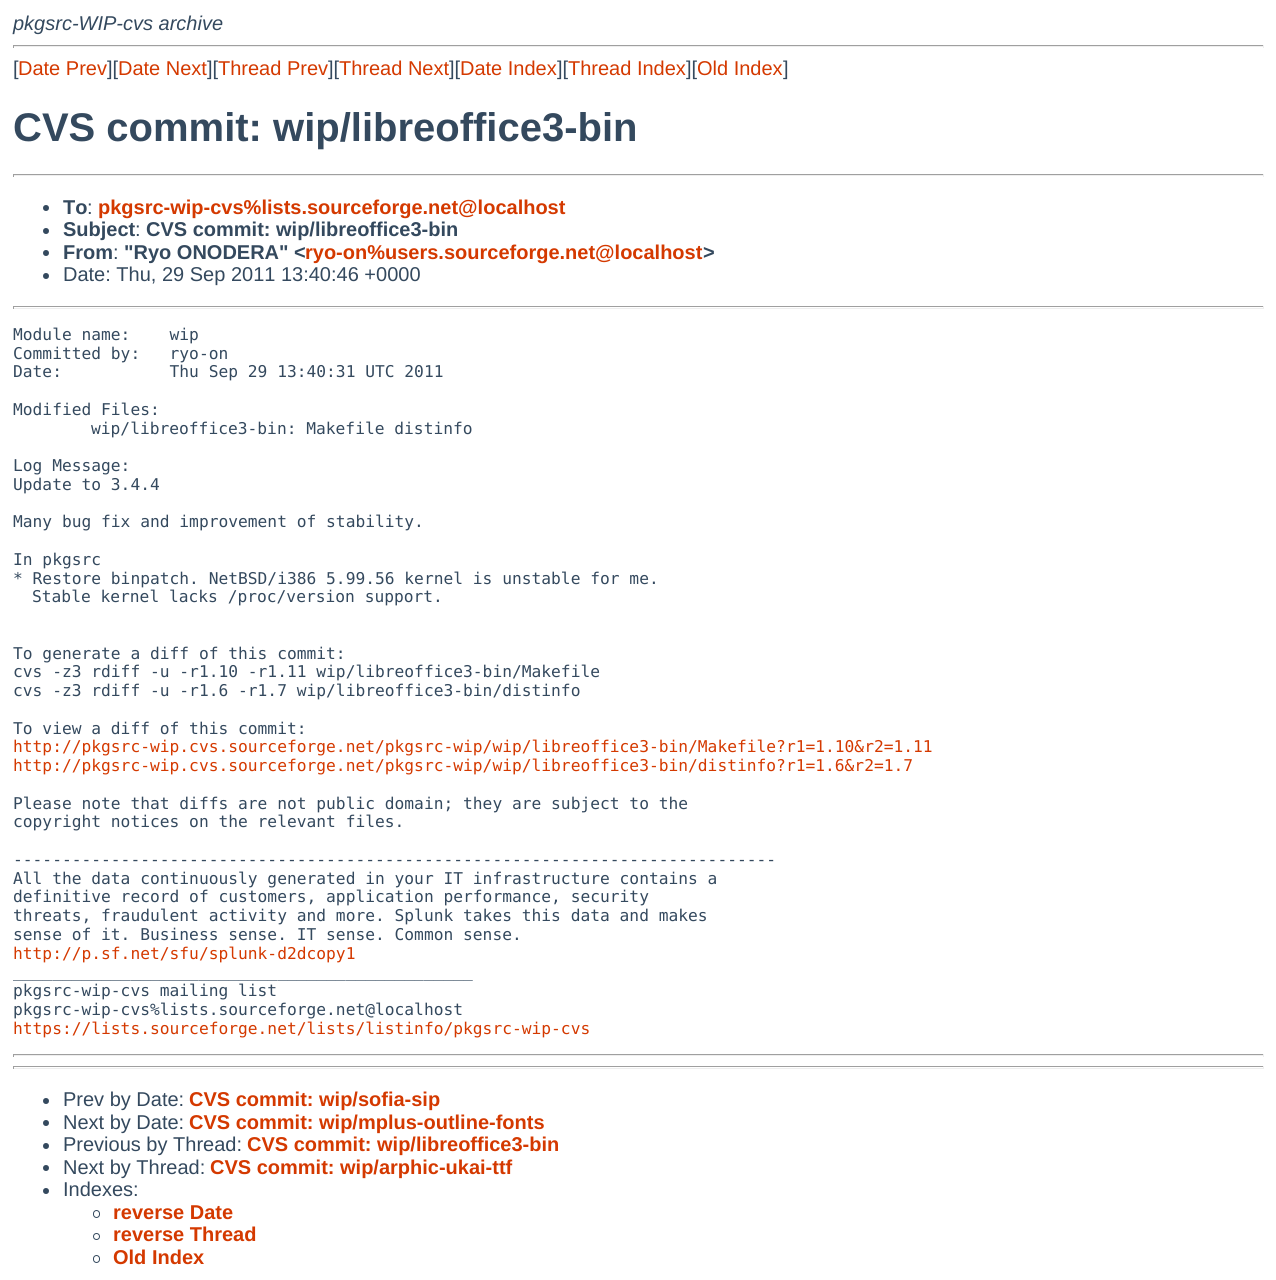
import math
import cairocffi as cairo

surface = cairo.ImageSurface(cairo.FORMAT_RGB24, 1276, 1280)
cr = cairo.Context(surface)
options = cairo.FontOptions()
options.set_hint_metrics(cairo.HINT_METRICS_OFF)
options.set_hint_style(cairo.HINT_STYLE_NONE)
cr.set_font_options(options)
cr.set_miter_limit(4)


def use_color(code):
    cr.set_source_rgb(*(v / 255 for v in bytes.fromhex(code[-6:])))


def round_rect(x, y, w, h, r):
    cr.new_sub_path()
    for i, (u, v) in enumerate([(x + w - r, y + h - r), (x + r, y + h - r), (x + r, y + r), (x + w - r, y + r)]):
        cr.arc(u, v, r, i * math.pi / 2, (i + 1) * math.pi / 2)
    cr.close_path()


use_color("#ffffff")
cr.paint()
cr.select_font_face("Liberation Sans", cairo.FONT_SLANT_ITALIC)
cr.set_font_size(20)
use_color("#34495e")
cr.move_to(13, 30)
cr.show_text("pkgsrc-WIP-cvs archive")
use_color("#9f9f9f")
cr.rectangle(13, 45, 1251, 1)
cr.fill()
use_color("#eeeeee")
cr.rectangle(1263, 45, 1, 3)
cr.fill()
cr.rectangle(13, 46, 1251, 1)
cr.fill()
use_color("#9f9f9f")
cr.rectangle(13, 45, 1, 3)
cr.fill()
cr.select_font_face("Liberation Sans")
use_color("#34495e")
cr.move_to(13, 75)
cr.show_text("[")
use_color("#d43900")
cr.move_to(18, 75)
cr.show_text("Date Prev")
use_color("#34495e")
cr.move_to(107, 75)
cr.show_text("][")
use_color("#d43900")
cr.move_to(118, 75)
cr.show_text("Date Next")
use_color("#34495e")
cr.move_to(207, 75)
cr.show_text("][")
use_color("#d43900")
cr.move_to(218, 75)
cr.show_text("Thread Prev")
use_color("#34495e")
cr.move_to(328, 75)
cr.show_text("][")
use_color("#d43900")
cr.move_to(339, 75)
cr.show_text("Thread Next")
use_color("#34495e")
cr.move_to(449, 75)
cr.show_text("][")
use_color("#d43900")
cr.move_to(460, 75)
cr.show_text("Date Index")
use_color("#34495e")
cr.move_to(557, 75)
cr.show_text("][")
use_color("#d43900")
cr.move_to(568, 75)
cr.show_text("Thread Index")
use_color("#34495e")
cr.move_to(686, 75)
cr.show_text("][")
use_color("#d43900")
cr.move_to(697, 75)
cr.show_text("Old Index")
use_color("#34495e")
cr.move_to(783, 75)
cr.show_text("]")
cr.select_font_face("Liberation Sans", cairo.FONT_SLANT_NORMAL, cairo.FONT_WEIGHT_BOLD)
cr.set_font_size(40)
cr.move_to(13, 141)
cr.show_text("CVS commit: wip/libreoffice3-bin")
use_color("#9f9f9f")
cr.rectangle(13, 174, 1251, 1)
cr.fill()
use_color("#eeeeee")
cr.rectangle(1263, 174, 1, 3)
cr.fill()
cr.rectangle(13, 175, 1251, 1)
cr.fill()
use_color("#9f9f9f")
cr.rectangle(13, 174, 1, 3)
cr.fill()
use_color("#34495e")
cr.arc(46, 208, 3, 0, 2 * math.pi)
cr.fill()
cr.set_font_size(20)
cr.move_to(63, 214)
cr.show_text("To")
cr.select_font_face("Liberation Sans")
cr.move_to(87, 214)
cr.show_text(":")
cr.select_font_face("Liberation Sans", cairo.FONT_SLANT_NORMAL, cairo.FONT_WEIGHT_BOLD)
use_color("#d43900")
cr.move_to(98, 214)
cr.show_text("pkgsrc-wip-cvs%lists.sourceforge.net@localhost")
use_color("#34495e")
cr.new_path()
cr.arc(46, 231, 3, 0, 2 * math.pi)
cr.fill()
cr.move_to(63, 236)
cr.show_text("Subject")
cr.select_font_face("Liberation Sans")
cr.move_to(135, 236)
cr.show_text(":")
cr.select_font_face("Liberation Sans", cairo.FONT_SLANT_NORMAL, cairo.FONT_WEIGHT_BOLD)
cr.move_to(146, 236)
cr.show_text("CVS commit: wip/libreoffice3-bin")
cr.new_path()
cr.arc(46, 253, 3, 0, 2 * math.pi)
cr.fill()
cr.move_to(63, 259)
cr.show_text("From")
cr.select_font_face("Liberation Sans")
cr.move_to(113, 259)
cr.show_text(":")
cr.select_font_face("Liberation Sans", cairo.FONT_SLANT_NORMAL, cairo.FONT_WEIGHT_BOLD)
cr.move_to(124, 259)
cr.show_text("\"Ryo ONODERA\" <")
use_color("#d43900")
cr.move_to(305, 259)
cr.show_text("ryo-on%users.sourceforge.net@localhost")
use_color("#34495e")
cr.move_to(703, 259)
cr.show_text(">")
cr.new_path()
cr.arc(46, 276, 3, 0, 2 * math.pi)
cr.fill()
cr.select_font_face("Liberation Sans")
cr.move_to(63, 281)
cr.show_text("Date: Thu, 29 Sep 2011 13:40:46 +0000")
use_color("#9f9f9f")
cr.rectangle(13, 306, 1251, 1)
cr.fill()
use_color("#eeeeee")
cr.rectangle(1263, 306, 1, 3)
cr.fill()
cr.rectangle(13, 308, 1251, 1)
cr.fill()
use_color("#9f9f9f")
cr.rectangle(13, 306, 1, 3)
cr.fill()
cr.select_font_face("DejaVu Sans Mono")
cr.set_font_size(16.25)
use_color("#34495e")
cr.move_to(13, 340)
cr.show_text("Module name:    wip")
cr.move_to(13, 359)
cr.show_text("Committed by:   ryo-on")
cr.move_to(13, 377)
cr.show_text("Date:           Thu Sep 29 13:40:31 UTC 2011")
cr.move_to(13, 415)
cr.show_text("Modified Files:")
cr.move_to(91, 434)
cr.show_text("wip/libreoffice3-bin: Makefile distinfo")
cr.move_to(13, 471)
cr.show_text("Log Message:")
cr.move_to(13, 490)
cr.show_text("Update to 3.4.4")
cr.move_to(13, 527)
cr.show_text("Many bug fix and improvement of stability.")
cr.move_to(13, 565)
cr.show_text("In pkgsrc")
cr.move_to(13, 584)
cr.show_text("* Restore binpatch. NetBSD/i386 5.99.56 kernel is unstable for me.")
cr.move_to(32, 602)
cr.show_text("Stable kernel lacks /proc/version support.")
cr.move_to(13, 659)
cr.show_text("To generate a diff of this commit:")
cr.move_to(13, 677)
cr.show_text("cvs -z3 rdiff -u -r1.10 -r1.11 wip/libreoffice3-bin/Makefile")
cr.move_to(13, 696)
cr.show_text("cvs -z3 rdiff -u -r1.6 -r1.7 wip/libreoffice3-bin/distinfo")
cr.move_to(13, 734)
cr.show_text("To view a diff of this commit:")
use_color("#d43900")
cr.move_to(13, 752)
cr.show_text("http://pkgsrc-wip.cvs.sourceforge.net/pkgsrc-wip/wip/libreoffice3-bin/Makefile?r1=1.10&r2=1.11")
cr.move_to(13, 771)
cr.show_text("http://pkgsrc-wip.cvs.sourceforge.net/pkgsrc-wip/wip/libreoffice3-bin/distinfo?r1=1.6&r2=1.7")
use_color("#34495e")
cr.move_to(13, 809)
cr.show_text("Please note that diffs are not public domain; they are subject to the")
cr.move_to(13, 827)
cr.show_text("copyright notices on the relevant files.")
cr.move_to(13, 865)
cr.show_text("------------------------------------------------------------------------------")
cr.move_to(13, 884)
cr.show_text("All the data continuously generated in your IT infrastructure contains a")
cr.move_to(13, 902)
cr.show_text("definitive record of customers, application performance, security")
cr.move_to(13, 921)
cr.show_text("threats, fraudulent activity and more. Splunk takes this data and makes")
cr.move_to(13, 940)
cr.show_text("sense of it. Business sense. IT sense. Common sense.")
use_color("#d43900")
cr.move_to(13, 959)
cr.show_text("http://p.sf.net/sfu/splunk-d2dcopy1")
use_color("#34495e")
cr.move_to(13, 977)
cr.show_text("_______________________________________________")
cr.move_to(13, 996)
cr.show_text("pkgsrc-wip-cvs mailing list")
cr.move_to(13, 1015)
cr.show_text("pkgsrc-wip-cvs%lists.sourceforge.net@localhost")
use_color("#d43900")
cr.move_to(13, 1034)
cr.show_text("https://lists.sourceforge.net/lists/listinfo/pkgsrc-wip-cvs")
use_color("#9f9f9f")
cr.rectangle(13, 1054, 1251, 1)
cr.fill()
use_color("#eeeeee")
cr.rectangle(1263, 1054, 1, 3)
cr.fill()
cr.rectangle(13, 1055, 1251, 1)
cr.fill()
use_color("#9f9f9f")
cr.rectangle(13, 1054, 1, 3)
cr.fill()
cr.rectangle(13, 1066, 1251, 1)
cr.fill()
use_color("#eeeeee")
cr.rectangle(1263, 1066, 1, 3)
cr.fill()
cr.rectangle(13, 1068, 1251, 1)
cr.fill()
use_color("#9f9f9f")
cr.rectangle(13, 1066, 1, 3)
cr.fill()
use_color("#34495e")
cr.arc(46, 1101, 3, 0, 2 * math.pi)
cr.fill()
cr.select_font_face("Liberation Sans")
cr.set_font_size(20)
cr.move_to(63, 1106)
cr.show_text("Prev by Date:")
cr.select_font_face("Liberation Sans", cairo.FONT_SLANT_NORMAL, cairo.FONT_WEIGHT_BOLD)
use_color("#d43900")
cr.move_to(189, 1106)
cr.show_text("CVS commit: wip/sofia-sip")
use_color("#34495e")
cr.new_path()
cr.arc(46, 1123, 3, 0, 2 * math.pi)
cr.fill()
cr.select_font_face("Liberation Sans")
cr.move_to(63, 1129)
cr.show_text("Next by Date:")
cr.select_font_face("Liberation Sans", cairo.FONT_SLANT_NORMAL, cairo.FONT_WEIGHT_BOLD)
use_color("#d43900")
cr.move_to(189, 1129)
cr.show_text("CVS commit: wip/mplus-outline-fonts")
use_color("#34495e")
cr.new_path()
cr.arc(46, 1146, 3, 0, 2 * math.pi)
cr.fill()
cr.select_font_face("Liberation Sans")
cr.move_to(63, 1151)
cr.show_text("Previous by Thread:")
cr.select_font_face("Liberation Sans", cairo.FONT_SLANT_NORMAL, cairo.FONT_WEIGHT_BOLD)
use_color("#d43900")
cr.move_to(247, 1151)
cr.show_text("CVS commit: wip/libreoffice3-bin")
use_color("#34495e")
cr.new_path()
cr.arc(46, 1168, 3, 0, 2 * math.pi)
cr.fill()
cr.select_font_face("Liberation Sans")
cr.move_to(63, 1174)
cr.show_text("Next by Thread:")
cr.select_font_face("Liberation Sans", cairo.FONT_SLANT_NORMAL, cairo.FONT_WEIGHT_BOLD)
use_color("#d43900")
cr.move_to(210, 1174)
cr.show_text("CVS commit: wip/arphic-ukai-ttf")
use_color("#34495e")
cr.new_path()
cr.arc(46, 1191, 3, 0, 2 * math.pi)
cr.fill()
cr.select_font_face("Liberation Sans")
cr.move_to(63, 1196)
cr.show_text("Indexes:")
round_rect(93.5, 1210.5, 6, 7, 3)
cr.set_line_width(1)
cr.stroke()
cr.select_font_face("Liberation Sans", cairo.FONT_SLANT_NORMAL, cairo.FONT_WEIGHT_BOLD)
use_color("#d43900")
cr.move_to(113, 1219)
cr.show_text("reverse Date")
cr.new_path()
cr.arc(96.5, 1236.5, 3, 0, 2 * math.pi)
use_color("#34495e")
cr.stroke()
use_color("#d43900")
cr.move_to(113, 1241)
cr.show_text("reverse Thread")
round_rect(93.5, 1255.5, 6, 7, 3)
use_color("#34495e")
cr.stroke()
use_color("#d43900")
cr.move_to(113, 1264)
cr.show_text("Old Index")
surface.write_to_png("result.png")
